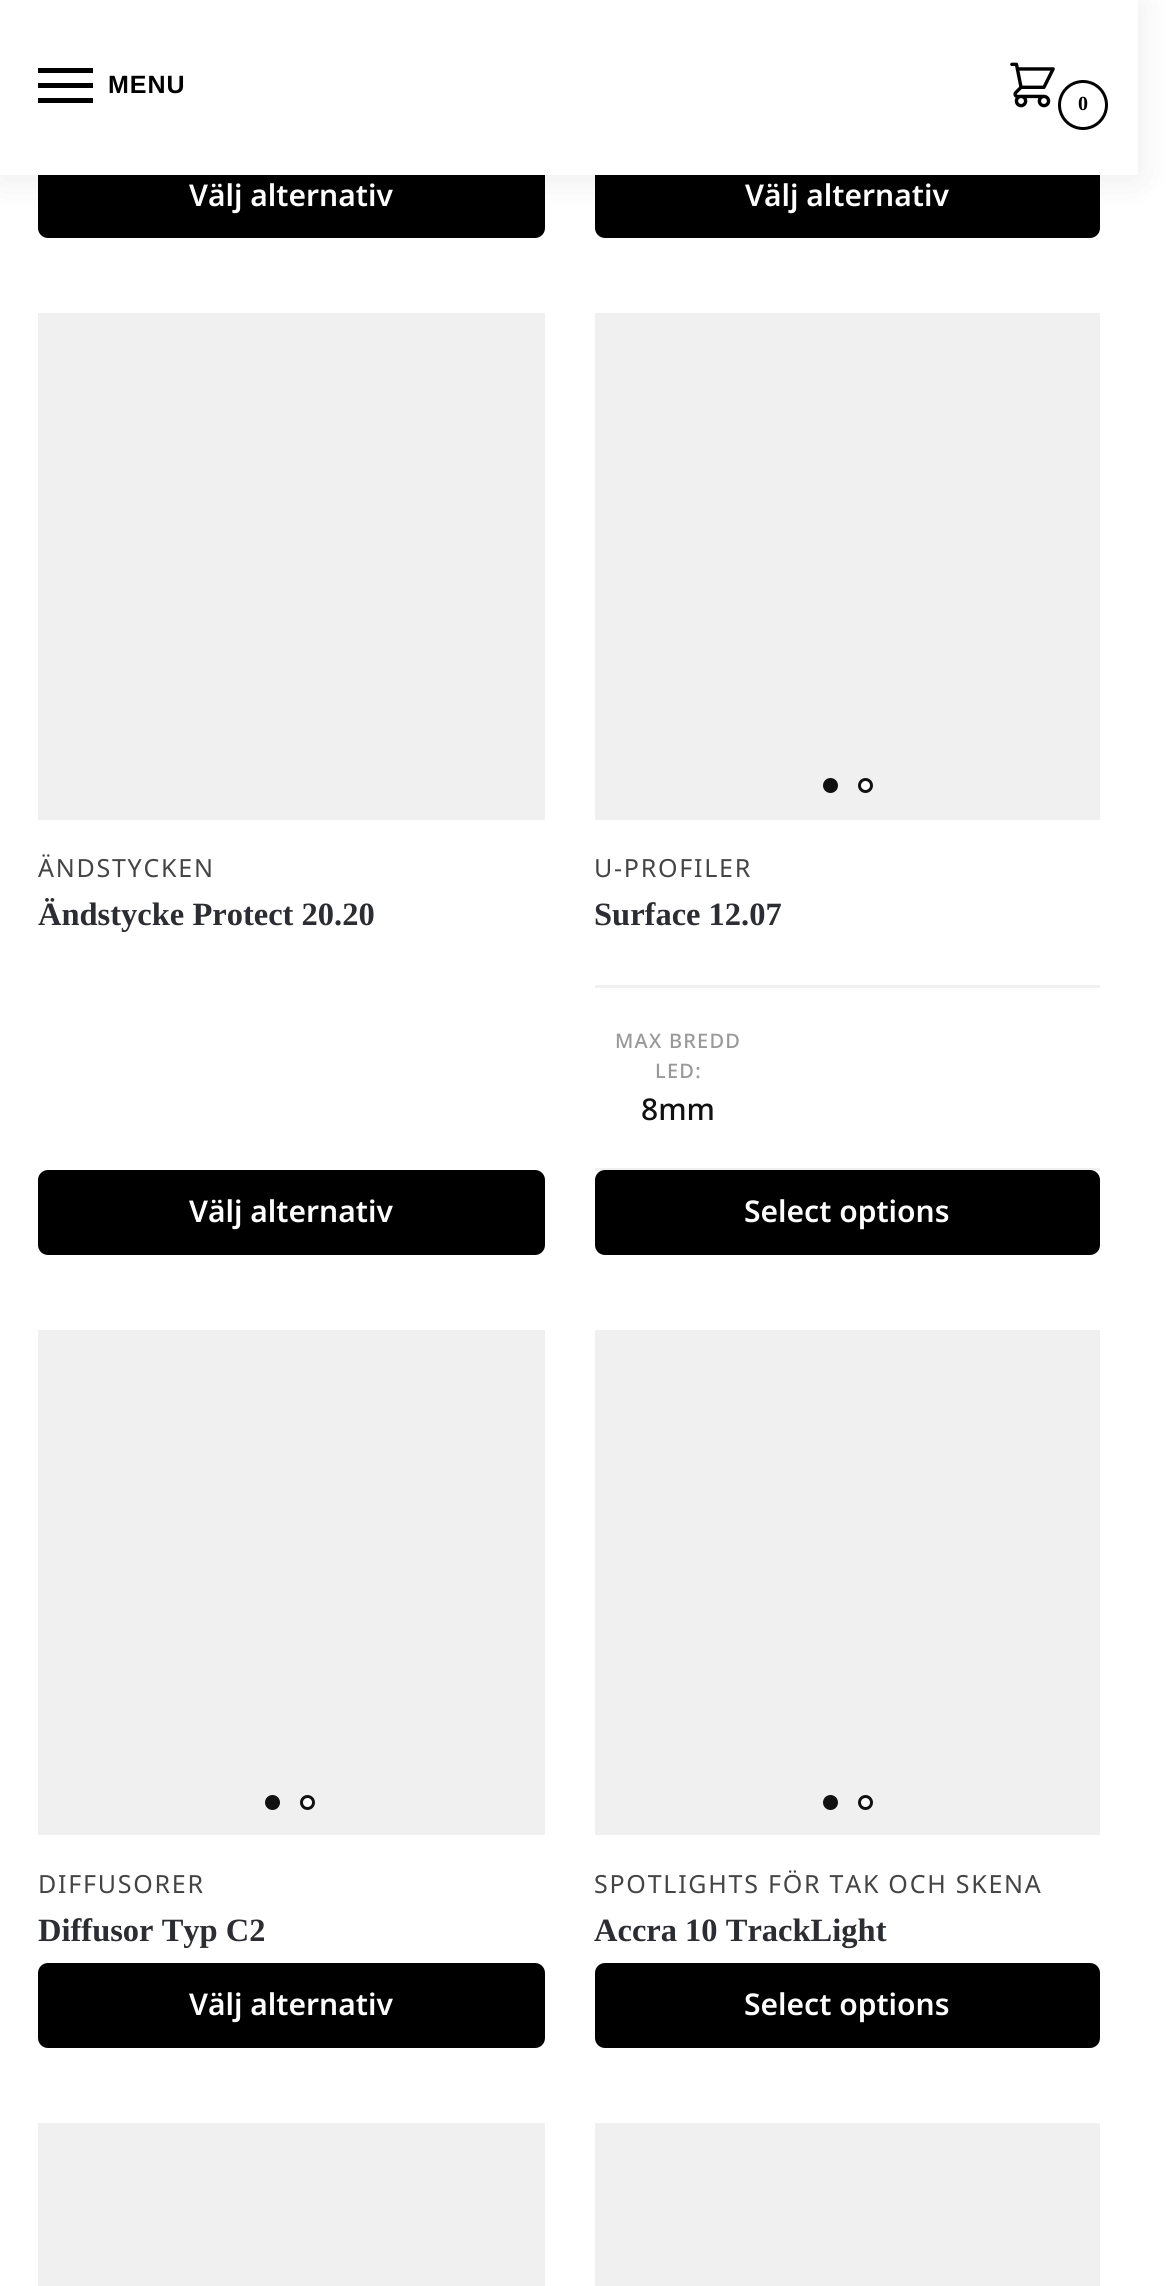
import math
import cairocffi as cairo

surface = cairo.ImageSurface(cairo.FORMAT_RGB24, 1175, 2286)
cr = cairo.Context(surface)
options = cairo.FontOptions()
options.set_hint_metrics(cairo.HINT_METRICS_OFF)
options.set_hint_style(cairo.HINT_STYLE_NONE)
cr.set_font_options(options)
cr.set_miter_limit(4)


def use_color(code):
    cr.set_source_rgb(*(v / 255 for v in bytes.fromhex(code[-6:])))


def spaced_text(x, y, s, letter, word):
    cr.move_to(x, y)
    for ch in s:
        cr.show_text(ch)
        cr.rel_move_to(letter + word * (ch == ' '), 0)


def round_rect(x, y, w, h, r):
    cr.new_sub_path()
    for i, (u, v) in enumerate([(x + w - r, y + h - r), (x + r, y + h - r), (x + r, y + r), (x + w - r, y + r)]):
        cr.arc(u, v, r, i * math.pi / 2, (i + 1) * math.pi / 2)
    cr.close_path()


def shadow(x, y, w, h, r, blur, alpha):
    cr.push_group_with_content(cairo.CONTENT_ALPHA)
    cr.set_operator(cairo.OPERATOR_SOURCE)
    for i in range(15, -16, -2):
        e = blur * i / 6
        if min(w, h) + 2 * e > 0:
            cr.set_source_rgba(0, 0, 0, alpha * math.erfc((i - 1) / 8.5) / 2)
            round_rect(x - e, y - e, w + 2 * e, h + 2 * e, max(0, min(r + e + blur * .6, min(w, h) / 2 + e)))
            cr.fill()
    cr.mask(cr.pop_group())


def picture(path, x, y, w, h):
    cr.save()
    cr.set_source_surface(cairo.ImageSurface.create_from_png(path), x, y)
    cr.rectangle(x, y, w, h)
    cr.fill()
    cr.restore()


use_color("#ffffff")
cr.paint()
use_color("#000000")
round_rect(38, 153, 507, 85, 10)
cr.fill()
round_rect(595, 153, 505, 85, 10)
cr.fill()
use_color("#000000")
shadow(0, 3, 1138, 175, 0, 19, 0.08)
use_color("#ffffff")
cr.rectangle(0, 0, 1138, 175)
cr.fill()
use_color("#000000")
cr.rectangle(38, 68, 55, 5)
cr.fill()
cr.rectangle(38, 83, 55, 5)
cr.fill()
cr.select_font_face("Liberation Sans", cairo.FONT_SLANT_NORMAL, cairo.FONT_WEIGHT_BOLD)
cr.set_font_size(25)
spaced_text(108, 93, "MENU", 1, 0)
cr.rectangle(38, 98, 55, 5)
cr.fill()
picture("img1.png", 1010, 62, 45, 46)
cr.arc(1083, 105, 23.5, 0, 2 * math.pi)
cr.set_line_width(3)
cr.stroke()
cr.select_font_face("Liberation Serif", cairo.FONT_SLANT_NORMAL, cairo.FONT_WEIGHT_BOLD)
cr.set_font_size(20)
cr.move_to(1078, 110)
cr.show_text("0")
cr.select_font_face("Noto Sans SemiBold")
cr.set_font_size(30)
use_color("#ffffff")
cr.move_to(189, 206)
cr.show_text("Välj alternativ")
cr.move_to(745, 206)
cr.show_text("Välj alternativ")
use_color("#f0f0f0")
cr.rectangle(38, 313, 507, 507)
cr.fill()
cr.select_font_face("Noto Sans")
cr.set_font_size(25)
use_color("#444444")
spaced_text(38, 877, "ÄNDSTYCKEN", 1.75, 0)
cr.select_font_face("Liberation Serif", cairo.FONT_SLANT_NORMAL, cairo.FONT_WEIGHT_BOLD)
cr.set_font_size(32.5)
use_color("#2c2d33")
cr.move_to(38, 925)
cr.show_text("Ändstycke Protect 20.20")
use_color("#000000")
round_rect(38, 1170, 507, 85, 10)
cr.fill()
cr.select_font_face("Noto Sans SemiBold")
cr.set_font_size(30)
use_color("#ffffff")
cr.move_to(189, 1222)
cr.show_text("Välj alternativ")
use_color("#f0f0f0")
cr.rectangle(595, 313, 505, 507)
cr.fill()
use_color("#111111")
cr.arc(830.5, 785.5, 6, 0, 2 * math.pi)
cr.fill_preserve()
cr.stroke()
use_color("#ffffff")
cr.arc(865.5, 785.5, 6, 0, 2 * math.pi)
cr.fill_preserve()
use_color("#111111")
cr.stroke()
cr.select_font_face("Noto Sans")
cr.set_font_size(25)
use_color("#444444")
spaced_text(594, 877, "U-PROFILER", 1.75, 0)
cr.select_font_face("Liberation Serif", cairo.FONT_SLANT_NORMAL, cairo.FONT_WEIGHT_BOLD)
cr.set_font_size(32.5)
use_color("#2c2d33")
cr.move_to(594, 925)
cr.show_text("Surface 12.07")
use_color("#f0f0f0")
cr.rectangle(595, 985, 505, 3)
cr.fill()
cr.rectangle(595, 1168, 505, 3)
cr.fill()
cr.select_font_face("Noto Sans Medium")
cr.set_font_size(20)
use_color("#999999")
spaced_text(615, 1048, "MAX BREDD", 1.25, 0)
spaced_text(655, 1078, "LED:", 1.25, 0)
cr.set_font_size(30)
use_color("#111111")
cr.move_to(641, 1120)
cr.show_text("8mm")
use_color("#000000")
round_rect(595, 1170, 505, 85, 10)
cr.fill()
cr.select_font_face("Noto Sans SemiBold")
use_color("#ffffff")
cr.move_to(744, 1222)
cr.show_text("Select options")
use_color("#f0f0f0")
cr.rectangle(38, 1330, 507, 505)
cr.fill()
use_color("#111111")
cr.arc(272.5, 1802.5, 6, 0, 2 * math.pi)
cr.fill_preserve()
cr.stroke()
use_color("#ffffff")
cr.arc(307.5, 1802.5, 6, 0, 2 * math.pi)
cr.fill_preserve()
use_color("#111111")
cr.stroke()
cr.select_font_face("Noto Sans")
cr.set_font_size(25)
use_color("#444444")
spaced_text(38, 1893, "DIFFUSORER", 1.75, 0)
cr.select_font_face("Liberation Serif", cairo.FONT_SLANT_NORMAL, cairo.FONT_WEIGHT_BOLD)
cr.set_font_size(32.5)
use_color("#2c2d33")
cr.move_to(38, 1941)
cr.show_text("Diffusor Typ C2")
use_color("#000000")
round_rect(38, 1963, 507, 85, 10)
cr.fill()
cr.select_font_face("Noto Sans SemiBold")
cr.set_font_size(30)
use_color("#ffffff")
cr.move_to(189, 2015)
cr.show_text("Välj alternativ")
use_color("#f0f0f0")
cr.rectangle(595, 1330, 505, 505)
cr.fill()
use_color("#111111")
cr.arc(830.5, 1802.5, 6, 0, 2 * math.pi)
cr.fill_preserve()
cr.stroke()
use_color("#ffffff")
cr.arc(865.5, 1802.5, 6, 0, 2 * math.pi)
cr.fill_preserve()
use_color("#111111")
cr.stroke()
cr.select_font_face("Noto Sans")
cr.set_font_size(25)
use_color("#444444")
spaced_text(594, 1893, "SPOTLIGHTS FÖR TAK OCH SKENA", 1.75, 0)
cr.select_font_face("Liberation Serif", cairo.FONT_SLANT_NORMAL, cairo.FONT_WEIGHT_BOLD)
cr.set_font_size(32.5)
use_color("#2c2d33")
cr.move_to(594, 1941)
cr.show_text("Accra 10 TrackLight")
use_color("#000000")
round_rect(595, 1963, 505, 85, 10)
cr.fill()
cr.select_font_face("Noto Sans SemiBold")
cr.set_font_size(30)
use_color("#ffffff")
cr.move_to(744, 2015)
cr.show_text("Select options")
use_color("#f0f0f0")
cr.rectangle(38, 2123, 507, 163)
cr.fill()
cr.rectangle(595, 2123, 505, 163)
cr.fill()
surface.write_to_png("result.png")
